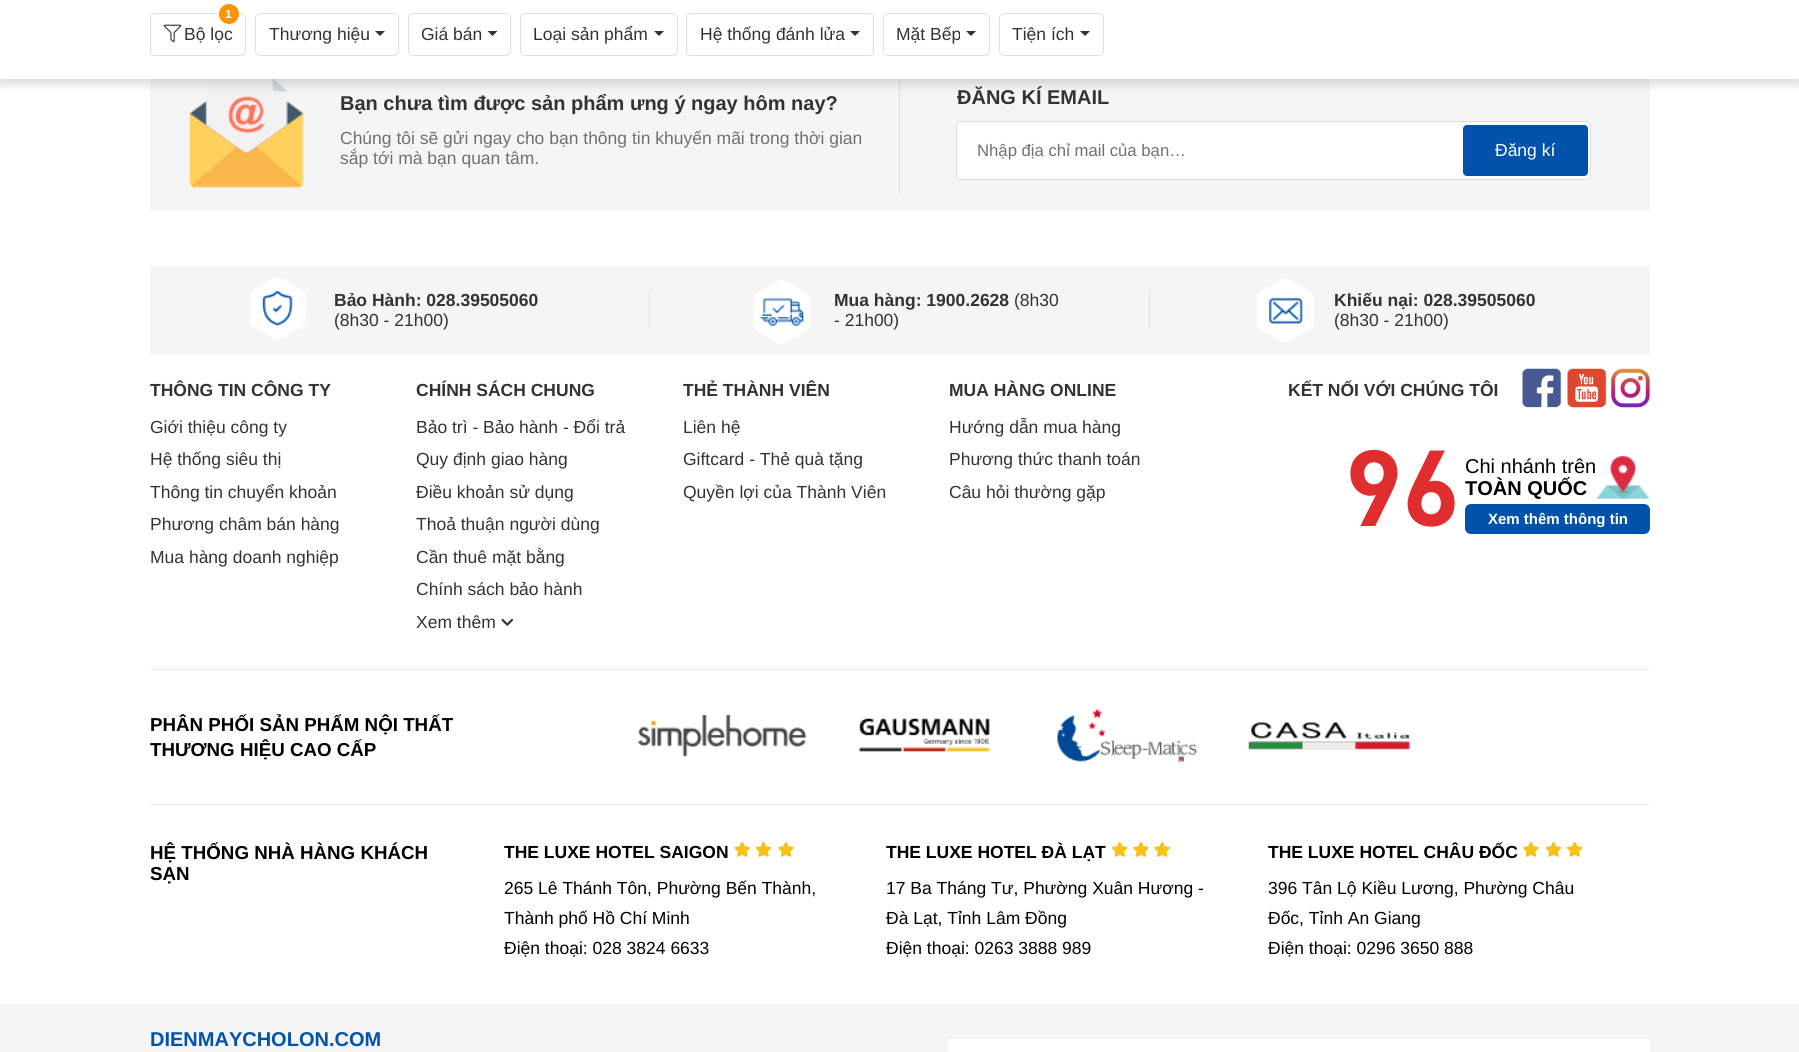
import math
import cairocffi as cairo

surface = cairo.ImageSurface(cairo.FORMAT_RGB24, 1799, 1052)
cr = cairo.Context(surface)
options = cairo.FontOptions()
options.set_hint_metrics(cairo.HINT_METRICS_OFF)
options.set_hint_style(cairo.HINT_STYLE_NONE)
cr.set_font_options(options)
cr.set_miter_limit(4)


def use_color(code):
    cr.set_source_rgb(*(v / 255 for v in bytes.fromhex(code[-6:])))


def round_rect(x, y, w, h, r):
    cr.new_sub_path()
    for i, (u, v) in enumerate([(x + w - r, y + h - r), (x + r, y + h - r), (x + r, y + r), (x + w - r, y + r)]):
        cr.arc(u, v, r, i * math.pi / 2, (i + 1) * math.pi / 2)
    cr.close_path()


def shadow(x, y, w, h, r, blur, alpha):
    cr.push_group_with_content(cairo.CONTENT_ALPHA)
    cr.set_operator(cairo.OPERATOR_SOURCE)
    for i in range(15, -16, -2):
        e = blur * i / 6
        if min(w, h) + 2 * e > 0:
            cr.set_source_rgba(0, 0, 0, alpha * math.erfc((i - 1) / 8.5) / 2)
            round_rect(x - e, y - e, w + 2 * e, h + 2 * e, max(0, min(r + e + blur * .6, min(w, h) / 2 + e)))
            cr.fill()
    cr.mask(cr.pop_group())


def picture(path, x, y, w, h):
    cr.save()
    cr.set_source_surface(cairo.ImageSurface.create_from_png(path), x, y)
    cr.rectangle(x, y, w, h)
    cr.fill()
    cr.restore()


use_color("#ffffff")
cr.paint()
use_color("#f5f5f5")
cr.rectangle(150, 79, 1500, 131)
cr.fill()
picture("img2.png", 190, 79, 114, 109)
use_color("#dedede")
cr.rectangle(899, 74, 1, 119)
cr.fill()
use_color("#000000")
shadow(0, 5, 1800, 79, 0, 5, 0.15)
use_color("#ffffff")
cr.rectangle(0, 0, 1799, 79)
cr.fill()
round_rect(150.5, 13.5, 95, 42, 4.5)
use_color("#e0e0e0")
cr.set_line_width(1)
cr.stroke()
use_color("#f89406")
cr.arc(229, 14, 10, 0, 2 * math.pi)
cr.fill()
cr.select_font_face("Liberation Sans", cairo.FONT_SLANT_NORMAL, cairo.FONT_WEIGHT_BOLD)
cr.set_font_size(12)
use_color("#ffffff")
cr.move_to(225, 18)
cr.show_text("1")
picture("img1.png", 163, 24, 19, 19)
cr.select_font_face("Liberation Sans")
cr.set_font_size(17.5)
use_color("#333333")
cr.move_to(184, 40)
cr.show_text("Bộ lọc")
round_rect(255.5, 13.5, 143, 42, 4.5)
use_color("#e0e0e0")
cr.stroke()
use_color("#333333")
cr.move_to(269, 40)
cr.show_text("Thương hiệu")
cr.new_path()
cr.move_to(375, 31)
cr.line_to(385, 31)
cr.line_to(380, 36)
cr.close_path()
cr.fill()
round_rect(408.5, 13.5, 102, 42, 4.5)
use_color("#e0e0e0")
cr.stroke()
use_color("#333333")
cr.move_to(421, 40)
cr.show_text("Giá bán")
cr.new_path()
cr.move_to(487.5, 31)
cr.line_to(497.5, 31)
cr.line_to(492.5, 36)
cr.close_path()
cr.fill()
round_rect(520.5, 13.5, 157, 42, 4.5)
use_color("#e0e0e0")
cr.stroke()
use_color("#333333")
cr.move_to(533, 40)
cr.show_text("Loại sản phẩm")
cr.new_path()
cr.move_to(654, 31)
cr.line_to(664, 31)
cr.line_to(659, 36)
cr.close_path()
cr.fill()
round_rect(686.5, 13.5, 187, 42, 4.5)
use_color("#e0e0e0")
cr.stroke()
use_color("#333333")
cr.move_to(700, 40)
cr.show_text("Hệ thống đánh lửa")
cr.new_path()
cr.move_to(850, 31)
cr.line_to(860, 31)
cr.line_to(855, 36)
cr.close_path()
cr.fill()
round_rect(883.5, 13.5, 106, 42, 4.5)
use_color("#e0e0e0")
cr.stroke()
use_color("#333333")
cr.move_to(896, 40)
cr.show_text("Mặt Bếp")
cr.new_path()
cr.move_to(966, 31)
cr.line_to(976, 31)
cr.line_to(971, 36)
cr.close_path()
cr.fill()
round_rect(999.5, 13.5, 104, 42, 4.5)
use_color("#e0e0e0")
cr.stroke()
use_color("#333333")
cr.move_to(1012, 40)
cr.show_text("Tiện ích")
cr.new_path()
cr.move_to(1080, 31)
cr.line_to(1090, 31)
cr.line_to(1085, 36)
cr.close_path()
cr.fill()
cr.select_font_face("Liberation Sans", cairo.FONT_SLANT_NORMAL, cairo.FONT_WEIGHT_BOLD)
cr.set_font_size(20)
cr.move_to(340, 110)
cr.show_text("Bạn chưa tìm được sản phẩm ưng ý ngay hôm nay?")
cr.select_font_face("Liberation Sans")
cr.set_font_size(17.5)
use_color("#707070")
cr.move_to(340, 144)
cr.show_text("Chúng tôi sẽ gửi ngay cho bạn thông tin khuyến mãi trong thời gian")
cr.move_to(340, 164)
cr.show_text("sắp tới mà bạn quan tâm.")
cr.select_font_face("Liberation Sans", cairo.FONT_SLANT_NORMAL, cairo.FONT_WEIGHT_BOLD)
cr.set_font_size(20)
use_color("#333333")
cr.move_to(957, 104)
cr.show_text("ĐĂNG KÍ EMAIL")
use_color("#ffffff")
round_rect(956.5, 121.5, 634, 58, 3.5)
cr.fill_preserve()
use_color("#dedede")
cr.stroke()
cr.select_font_face("Liberation Sans")
cr.set_font_size(16.7)
use_color("#707070")
cr.move_to(977, 156)
cr.show_text("Nhập địa chỉ mail của bạn…")
use_color("#0052aa")
round_rect(1463, 125, 125, 51, 4)
cr.fill()
cr.set_font_size(17.5)
use_color("#ffffff")
cr.move_to(1495, 156)
cr.show_text("Đăng kí")
use_color("#f5f5f5")
cr.rectangle(150, 266, 1500, 88)
cr.fill()
picture("img3.png", 250, 277, 56, 63)
cr.select_font_face("Liberation Sans", cairo.FONT_SLANT_NORMAL, cairo.FONT_WEIGHT_BOLD)
use_color("#333333")
cr.move_to(334, 306)
cr.show_text("Bảo Hành: 028.39505060")
cr.select_font_face("Liberation Sans")
cr.move_to(334, 326)
cr.show_text("(8h30 - 21h00)")
use_color("#dedede")
cr.rectangle(649, 291, 1, 38)
cr.fill()
picture("img4.png", 753, 279, 58, 65)
cr.select_font_face("Liberation Sans", cairo.FONT_SLANT_NORMAL, cairo.FONT_WEIGHT_BOLD)
use_color("#333333")
cr.move_to(834, 306)
cr.show_text("Mua hàng: 1900.2628")
cr.select_font_face("Liberation Sans")
cr.move_to(1014, 306)
cr.show_text("(8h30")
cr.move_to(834, 326)
cr.show_text("- 21h00)")
use_color("#dedede")
cr.rectangle(1149, 291, 1, 38)
cr.fill()
picture("img5.png", 1257, 278, 57, 65)
cr.select_font_face("Liberation Sans", cairo.FONT_SLANT_NORMAL, cairo.FONT_WEIGHT_BOLD)
use_color("#333333")
cr.move_to(1334, 306)
cr.show_text("Khiếu nại: 028.39505060")
cr.select_font_face("Liberation Sans")
cr.move_to(1334, 326)
cr.show_text("(8h30 - 21h00)")
cr.select_font_face("Liberation Sans", cairo.FONT_SLANT_NORMAL, cairo.FONT_WEIGHT_BOLD)
cr.move_to(150, 396)
cr.show_text("THÔNG TIN CÔNG TY")
cr.select_font_face("Liberation Sans")
cr.move_to(150, 433)
cr.show_text("Giới thiệu công ty")
cr.move_to(150, 465)
cr.show_text("Hệ thống siêu thị")
cr.move_to(150, 498)
cr.show_text("Thông tin chuyển khoản")
cr.move_to(150, 530)
cr.show_text("Phương châm bán hàng")
cr.move_to(150, 563)
cr.show_text("Mua hàng doanh nghiệp")
cr.select_font_face("Liberation Sans", cairo.FONT_SLANT_NORMAL, cairo.FONT_WEIGHT_BOLD)
cr.move_to(416, 396)
cr.show_text("CHÍNH SÁCH CHUNG")
cr.select_font_face("Liberation Sans")
cr.move_to(416, 433)
cr.show_text("Bảo trì - Bảo hành - Đổi trả")
cr.move_to(416, 465)
cr.show_text("Quy định giao hàng")
cr.move_to(416, 498)
cr.show_text("Điều khoản sử dụng")
cr.move_to(416, 530)
cr.show_text("Thoả thuận người dùng")
cr.move_to(416, 563)
cr.show_text("Cần thuê mặt bằng")
cr.move_to(416, 595)
cr.show_text("Chính sách bảo hành")
cr.move_to(416, 628)
cr.show_text("Xem thêm")
picture("img6.png", 501, 618, 13, 8)
cr.select_font_face("Liberation Sans", cairo.FONT_SLANT_NORMAL, cairo.FONT_WEIGHT_BOLD)
cr.move_to(683, 396)
cr.show_text("THẺ THÀNH VIÊN")
cr.select_font_face("Liberation Sans")
cr.move_to(683, 433)
cr.show_text("Liên hệ")
cr.move_to(683, 465)
cr.show_text("Giftcard - Thẻ quà tặng")
cr.move_to(683, 498)
cr.show_text("Quyền lợi của Thành Viên")
cr.select_font_face("Liberation Sans", cairo.FONT_SLANT_NORMAL, cairo.FONT_WEIGHT_BOLD)
cr.move_to(949, 396)
cr.show_text("MUA HÀNG ONLINE")
cr.select_font_face("Liberation Sans")
cr.move_to(949, 433)
cr.show_text("Hướng dẫn mua hàng")
cr.move_to(949, 465)
cr.show_text("Phương thức thanh toán")
cr.move_to(949, 498)
cr.show_text("Câu hỏi thường gặp")
cr.select_font_face("Liberation Sans", cairo.FONT_SLANT_NORMAL, cairo.FONT_WEIGHT_BOLD)
cr.move_to(1288, 396)
cr.show_text("KẾT NỐI VỚI CHÚNG TÔI")
picture("img7.png", 1522, 368, 40, 40)
picture("img8.png", 1567, 368, 40, 40)
picture("img9.png", 1611, 368, 39, 40)
cr.select_font_face("DIN", cairo.FONT_SLANT_NORMAL, cairo.FONT_WEIGHT_BOLD)
cr.set_font_size(106)
use_color("#e02e2e")
cr.move_to(1345, 526)
cr.show_text("96")
cr.select_font_face("Liberation Sans")
cr.set_font_size(20)
use_color("#000000")
cr.move_to(1465, 473)
cr.show_text("Chi nhánh trên")
cr.select_font_face("Liberation Sans", cairo.FONT_SLANT_NORMAL, cairo.FONT_WEIGHT_BOLD)
cr.move_to(1465, 495)
cr.show_text("TOÀN QUỐC")
picture("img10.png", 1596, 456, 54, 43)
use_color("#0052aa")
round_rect(1465, 504, 185, 30, 6)
cr.fill()
cr.set_font_size(15)
use_color("#ffffff")
cr.move_to(1488, 524)
cr.show_text("Xem thêm thông tin")
use_color("#ebebeb")
cr.rectangle(150, 669, 1500, 1)
cr.fill()
cr.rectangle(150, 804, 1500, 1)
cr.fill()
cr.set_font_size(18.75)
use_color("#000000")
cr.move_to(150, 731)
cr.show_text("PHÂN PHỐI SẢN PHẨM NỘI THẤT")
cr.move_to(150, 756)
cr.show_text("THƯƠNG HIỆU CAO CẤP")
picture("img11.png", 637, 708, 774, 55)
cr.move_to(150, 859)
cr.show_text("HỆ THỐNG NHÀ HÀNG KHÁCH")
cr.move_to(150, 880)
cr.show_text("SẠN")
cr.set_font_size(17.5)
cr.move_to(504, 858)
cr.show_text("THE LUXE HOTEL SAIGON")
picture("img12.png", 734, 841, 16, 16)
picture("img13.png", 755, 841, 17, 16)
picture("img14.png", 778, 841, 16, 16)
cr.select_font_face("Liberation Sans")
cr.move_to(504, 894)
cr.show_text("265 Lê Thánh Tôn, Phường Bến Thành,")
cr.move_to(504, 924)
cr.show_text("Thành phố Hồ Chí Minh")
cr.move_to(504, 954)
cr.show_text("Điện thoại: 028 3824 6633")
cr.select_font_face("Liberation Sans", cairo.FONT_SLANT_NORMAL, cairo.FONT_WEIGHT_BOLD)
cr.move_to(886, 858)
cr.show_text("THE LUXE HOTEL ĐÀ LẠT")
picture("img15.png", 1111, 841, 17, 16)
picture("img14.png", 1133, 841, 16, 16)
picture("img12.png", 1154, 841, 16, 16)
cr.select_font_face("Liberation Sans")
cr.move_to(886, 894)
cr.show_text("17 Ba Tháng Tư, Phường Xuân Hương -")
cr.move_to(886, 924)
cr.show_text("Đà Lạt, Tỉnh Lâm Đồng")
cr.move_to(886, 954)
cr.show_text("Điện thoại: 0263 3888 989")
cr.select_font_face("Liberation Sans", cairo.FONT_SLANT_NORMAL, cairo.FONT_WEIGHT_BOLD)
cr.move_to(1268, 858)
cr.show_text("THE LUXE HOTEL CHÂU ĐỐC")
picture("img14.png", 1523, 841, 16, 16)
picture("img13.png", 1545, 841, 17, 16)
picture("img15.png", 1566, 841, 17, 16)
cr.select_font_face("Liberation Sans")
cr.move_to(1268, 894)
cr.show_text("396 Tân Lộ Kiều Lương, Phường Châu")
cr.move_to(1268, 924)
cr.show_text("Đốc, Tỉnh An Giang")
cr.move_to(1268, 954)
cr.show_text("Điện thoại: 0296 3650 888")
use_color("#f5f5f5")
cr.rectangle(0, 1004, 1799, 48)
cr.fill()
cr.select_font_face("Liberation Sans", cairo.FONT_SLANT_NORMAL, cairo.FONT_WEIGHT_BOLD)
cr.set_font_size(20)
use_color("#0052aa")
cr.move_to(150, 1046)
cr.show_text("DIENMAYCHOLON.COM")
use_color("#ffffff")
cr.rectangle(948, 1039, 702, 13)
cr.fill()
surface.write_to_png("result.png")
